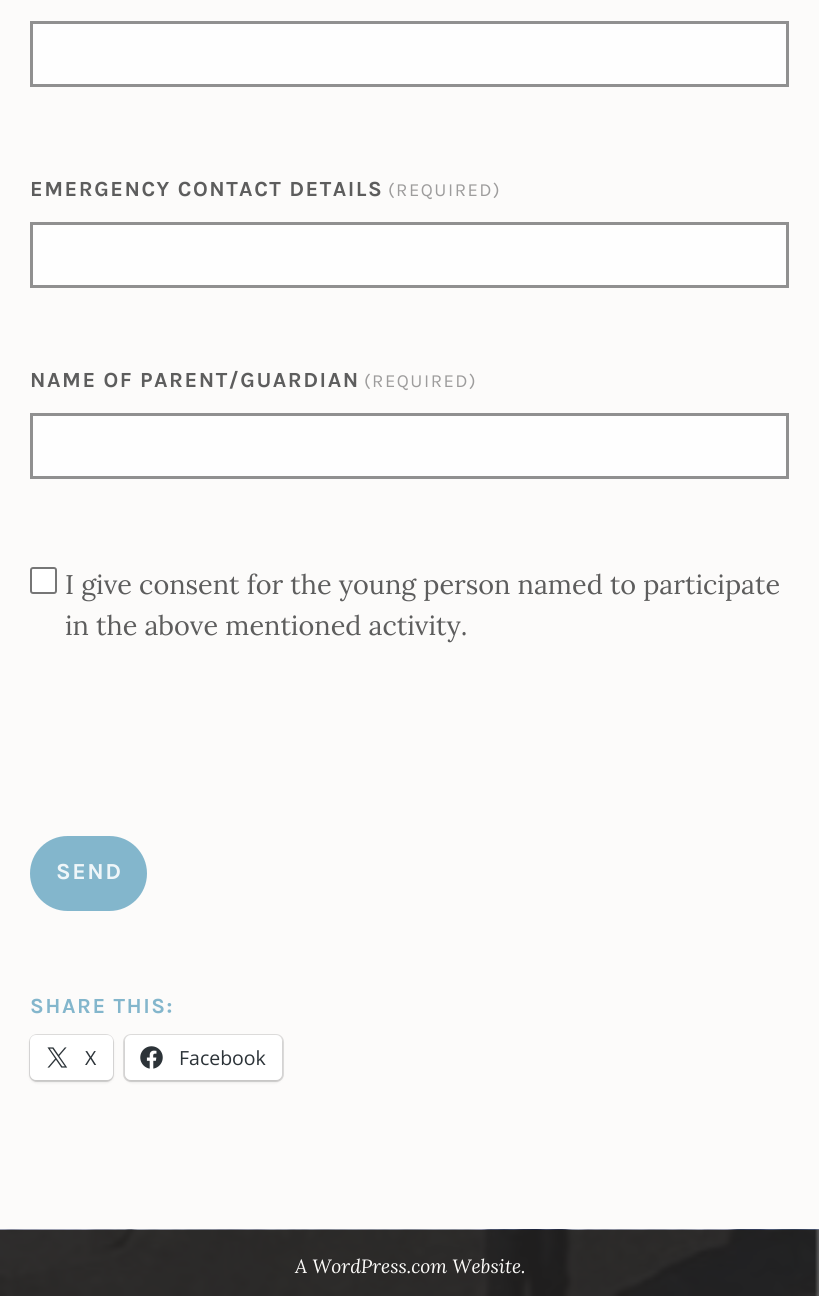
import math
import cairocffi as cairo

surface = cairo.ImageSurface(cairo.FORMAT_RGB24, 819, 1296)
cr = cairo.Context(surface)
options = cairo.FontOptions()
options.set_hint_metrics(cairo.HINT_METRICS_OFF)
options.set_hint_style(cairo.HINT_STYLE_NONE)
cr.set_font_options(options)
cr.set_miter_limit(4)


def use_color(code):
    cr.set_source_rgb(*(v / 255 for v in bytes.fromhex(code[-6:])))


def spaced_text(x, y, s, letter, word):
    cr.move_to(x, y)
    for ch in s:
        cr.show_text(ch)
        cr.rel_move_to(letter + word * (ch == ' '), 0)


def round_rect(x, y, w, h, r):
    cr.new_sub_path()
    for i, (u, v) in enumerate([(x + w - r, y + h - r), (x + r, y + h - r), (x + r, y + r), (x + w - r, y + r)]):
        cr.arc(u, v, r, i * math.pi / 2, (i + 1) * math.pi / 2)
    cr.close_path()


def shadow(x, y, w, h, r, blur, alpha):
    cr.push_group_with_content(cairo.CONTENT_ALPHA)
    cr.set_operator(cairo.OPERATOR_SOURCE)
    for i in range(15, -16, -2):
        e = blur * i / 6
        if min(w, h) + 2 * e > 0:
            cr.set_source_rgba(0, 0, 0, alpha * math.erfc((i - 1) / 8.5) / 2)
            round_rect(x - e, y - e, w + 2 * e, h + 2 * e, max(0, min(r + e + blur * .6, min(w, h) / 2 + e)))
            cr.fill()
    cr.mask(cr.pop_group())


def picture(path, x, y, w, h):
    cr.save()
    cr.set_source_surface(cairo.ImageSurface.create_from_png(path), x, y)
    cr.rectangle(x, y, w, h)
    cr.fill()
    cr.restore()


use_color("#fcfbfa")
cr.paint()
use_color("#fefefe")
cr.rectangle(31.5, 22.5, 756, 63)
cr.fill_preserve()
use_color("#909090")
cr.set_line_width(3)
cr.stroke()
cr.select_font_face("Karla", cairo.FONT_SLANT_NORMAL, cairo.FONT_WEIGHT_BOLD)
cr.set_font_size(21.6)
use_color("#5d5d5d")
spaced_text(30, 196, "EMERGENCY CONTACT DETAILS", 1.5, 0)
cr.select_font_face("Karla")
cr.set_font_size(18.5)
use_color("#9d9c9c")
spaced_text(388, 196, "(REQUIRED)", 1.5, 0)
use_color("#fefefe")
cr.rectangle(31.5, 223.5, 756, 63)
cr.fill_preserve()
use_color("#909090")
cr.stroke()
cr.select_font_face("Karla", cairo.FONT_SLANT_NORMAL, cairo.FONT_WEIGHT_BOLD)
cr.set_font_size(21.6)
use_color("#5d5d5d")
spaced_text(30, 387, "NAME OF PARENT/GUARDIAN", 1.5, 0)
cr.select_font_face("Karla")
cr.set_font_size(18.5)
use_color("#9d9c9c")
spaced_text(364, 387, "(REQUIRED)", 1.5, 0)
use_color("#fefefe")
cr.rectangle(31.5, 414.5, 756, 63)
cr.fill_preserve()
use_color("#909090")
cr.stroke()
use_color("#ffffff")
round_rect(31, 568, 25, 25, 2)
cr.fill_preserve()
use_color("#767676")
cr.set_line_width(2)
cr.stroke()
cr.select_font_face("Lora")
cr.set_font_size(27)
use_color("#5d5d5d")
cr.move_to(65, 594)
cr.show_text("I give consent for the young person named to participate")
cr.move_to(65, 635)
cr.show_text("in the above mentioned activity.")
use_color("#83b6cc")
round_rect(30, 836, 117, 75, 37.5)
cr.fill()
cr.select_font_face("Karla", cairo.FONT_SLANT_NORMAL, cairo.FONT_WEIGHT_BOLD)
cr.set_font_size(23)
use_color("#eff6f9")
spaced_text(56, 879, "SEND", 1.5, 0)
cr.set_font_size(21.6)
use_color("#83b6cc")
spaced_text(30, 1013, "SHARE THIS:", 1.5, 0)
round_rect(30, 1035, 83, 46, 7)
use_color("#dedddc")
cr.stroke()
use_color("#000000")
shadow(30, 1037, 83, 45, 6, 1.5, 0.12)
use_color("#ffffff")
round_rect(30, 1035, 83, 45, 6)
cr.fill()
picture("img1.png", 47, 1047, 21, 21)
cr.select_font_face("Open Sans")
cr.set_font_size(19.5)
use_color("#2c3338")
cr.move_to(85, 1065)
cr.show_text("X")
round_rect(124, 1035, 159, 46, 7)
use_color("#dedddc")
cr.stroke()
use_color("#000000")
shadow(125, 1037, 157, 45, 6, 1.5, 0.12)
use_color("#ffffff")
round_rect(125, 1035, 157, 45, 6)
cr.fill()
picture("img2.png", 140, 1046, 23, 23)
use_color("#2c3338")
cr.move_to(179, 1065)
cr.show_text("Facebook")
picture("img3.png", 0, 1229, 819, 67)
cr.select_font_face("Lora", cairo.FONT_SLANT_ITALIC)
cr.set_font_size(19.25)
use_color("#fcfbf9")
cr.move_to(295, 1273)
cr.show_text("A WordPress.com Website.")
surface.write_to_png("result.png")
